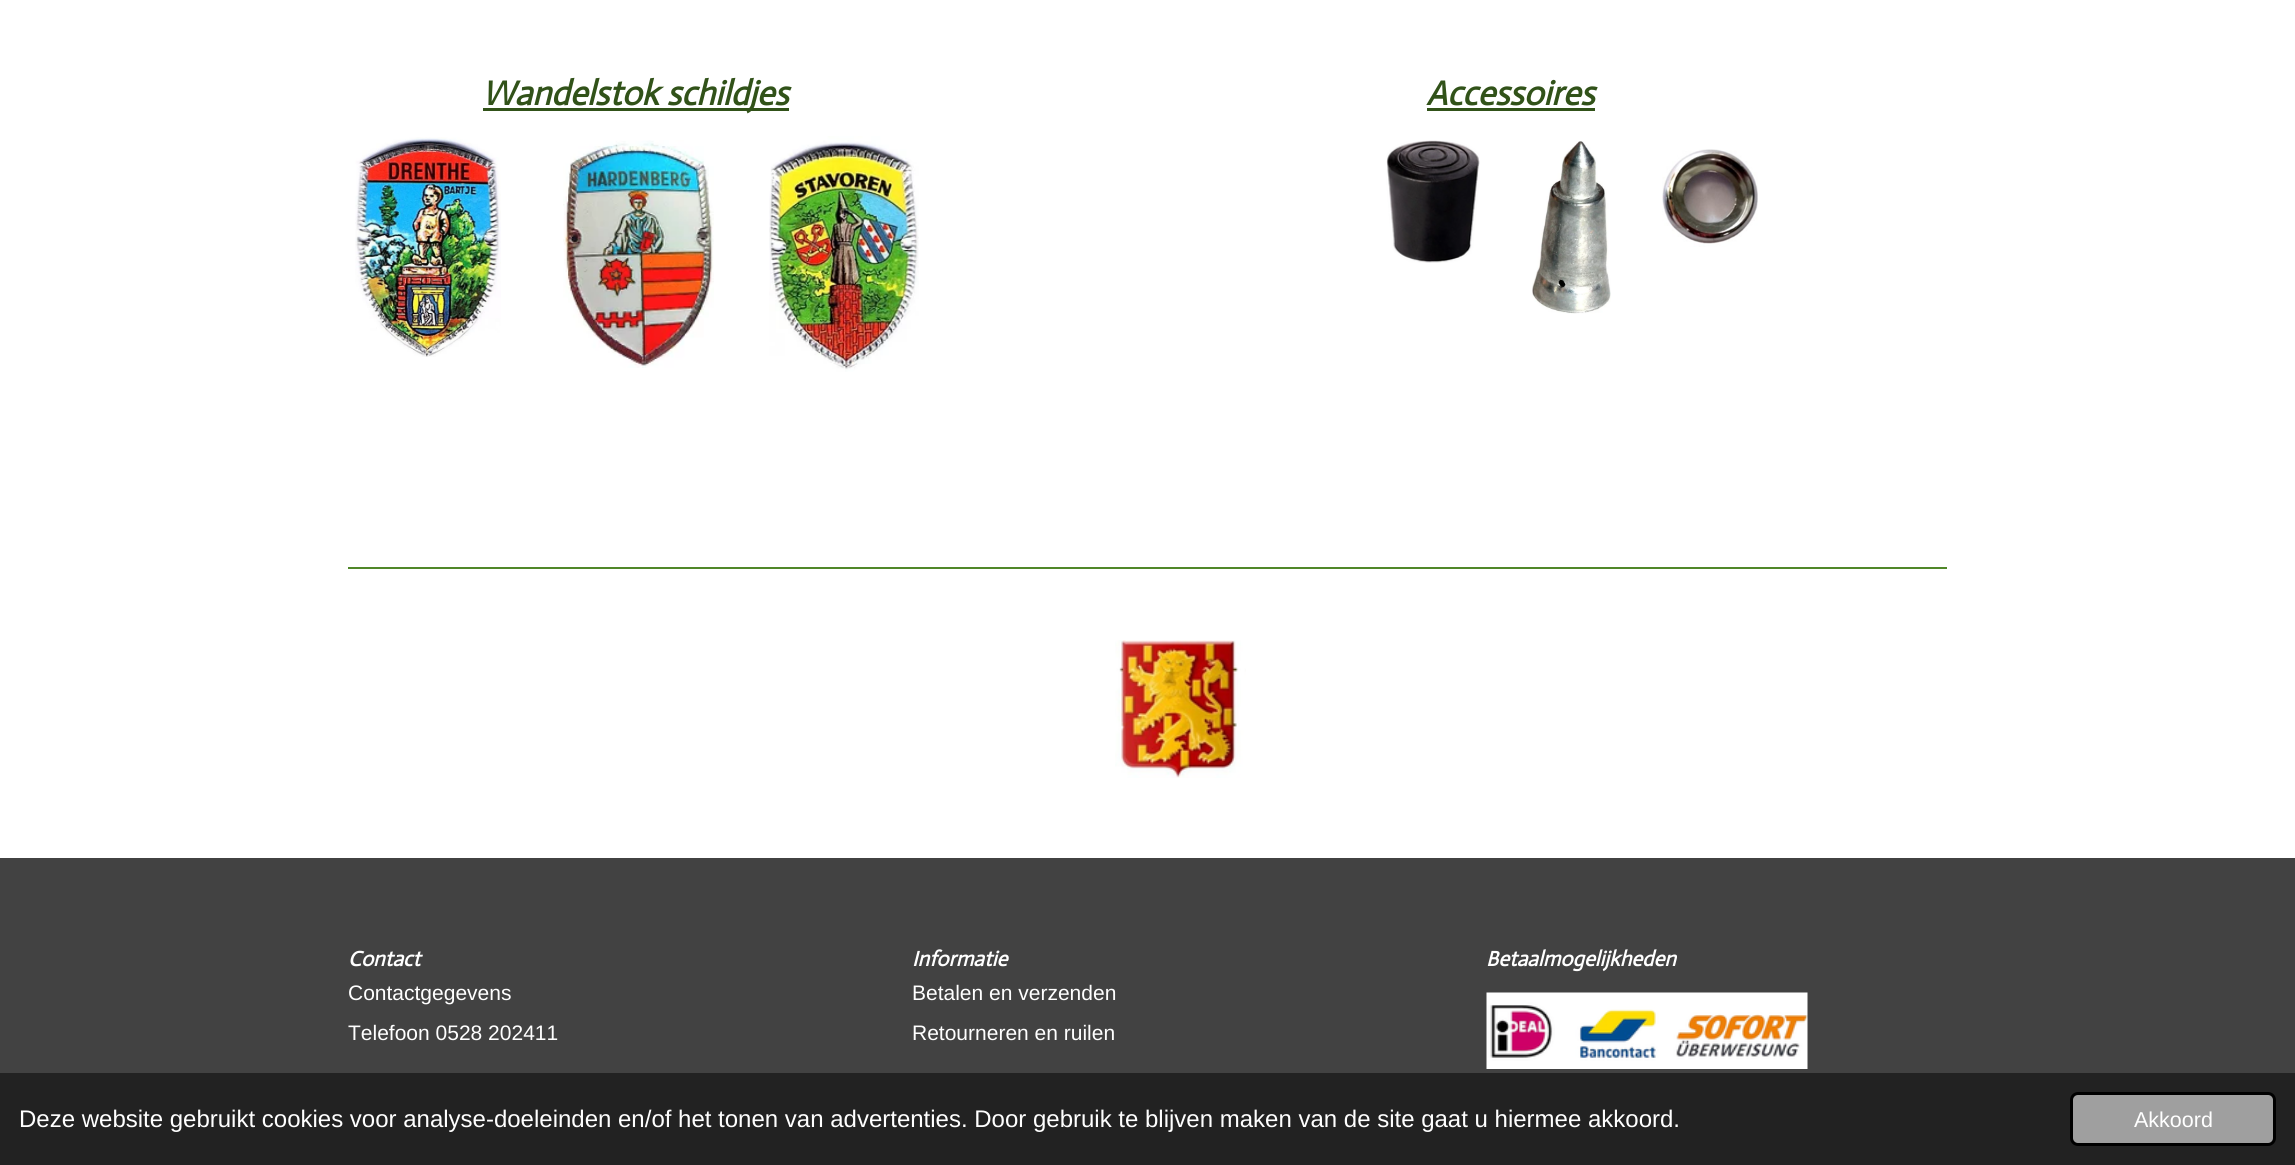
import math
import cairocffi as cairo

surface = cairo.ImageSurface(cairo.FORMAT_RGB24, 2295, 1165)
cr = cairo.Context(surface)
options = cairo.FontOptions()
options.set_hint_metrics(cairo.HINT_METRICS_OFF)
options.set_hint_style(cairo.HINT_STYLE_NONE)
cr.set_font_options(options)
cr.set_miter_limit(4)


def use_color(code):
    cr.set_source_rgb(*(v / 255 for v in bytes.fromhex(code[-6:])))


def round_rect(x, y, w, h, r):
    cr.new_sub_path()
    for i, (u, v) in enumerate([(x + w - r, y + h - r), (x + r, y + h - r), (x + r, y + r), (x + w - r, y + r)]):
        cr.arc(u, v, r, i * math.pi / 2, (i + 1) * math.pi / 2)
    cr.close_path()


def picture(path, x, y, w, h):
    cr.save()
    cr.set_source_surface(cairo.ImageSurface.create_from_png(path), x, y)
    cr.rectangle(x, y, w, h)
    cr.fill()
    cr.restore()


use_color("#ffffff")
cr.paint()
use_color("#315219")
cr.rectangle(483, 108, 306, 3)
cr.fill()
cr.select_font_face("Actor", cairo.FONT_SLANT_ITALIC, cairo.FONT_WEIGHT_BOLD)
cr.set_font_size(34.5)
cr.move_to(482, 105)
cr.show_text("Wandelstok schildjes")
cr.move_to(1426, 105)
cr.show_text("Accessoires")
cr.rectangle(1427, 108, 168, 3)
cr.fill()
picture("img1.png", 355, 137, 146, 220)
picture("img2.png", 563, 140, 151, 228)
picture("img3.png", 769, 136, 150, 236)
picture("img4.png", 1386, 140, 94, 123)
picture("img5.png", 1532, 141, 79, 173)
picture("img6.png", 1662, 149, 96, 98)
use_color("#508729")
cr.rectangle(348, 567, 1599, 2)
cr.fill()
picture("img7.png", 1115, 640, 131, 138)
use_color("#424242")
cr.rectangle(0, 858, 2295, 215)
cr.fill()
cr.set_font_size(21.25)
use_color("#ffffff")
cr.move_to(348, 966)
cr.show_text("Contact")
cr.select_font_face("Liberation Sans")
cr.set_font_size(21)
cr.move_to(348, 1000)
cr.show_text("Contactgegevens")
cr.move_to(348, 1040)
cr.show_text("Telefoon 0528 202411")
cr.select_font_face("Actor", cairo.FONT_SLANT_ITALIC, cairo.FONT_WEIGHT_BOLD)
cr.set_font_size(21.25)
cr.move_to(912, 966)
cr.show_text("Informatie")
cr.select_font_face("Liberation Sans")
cr.set_font_size(21)
cr.move_to(912, 1000)
cr.show_text("Betalen en verzenden")
cr.move_to(912, 1040)
cr.show_text("Retourneren en ruilen")
cr.select_font_face("Actor", cairo.FONT_SLANT_ITALIC, cairo.FONT_WEIGHT_BOLD)
cr.set_font_size(21.25)
cr.move_to(1486, 966)
cr.show_text("Betaalmogelijkheden")
picture("img8.png", 1486, 992, 322, 77)
use_color("#222222")
cr.rectangle(0, 1073, 2295, 92)
cr.fill()
cr.select_font_face("Liberation Sans")
cr.set_font_size(24)
use_color("#ffffff")
cr.move_to(19, 1127)
cr.show_text("Deze website gebruikt cookies voor analyse-doeleinden en/of het tonen van advertenties. Door gebruik te blijven maken van de site gaat u hiermee akkoord.")
use_color("#9f9f9f")
round_rect(2071.5, 1093.5, 203, 51, 6.5)
cr.fill_preserve()
use_color("#000000")
cr.set_line_width(3)
cr.stroke()
cr.set_font_size(21.5)
use_color("#ffffff")
cr.move_to(2134, 1127)
cr.show_text("Akkoord")
surface.write_to_png("result.png")
